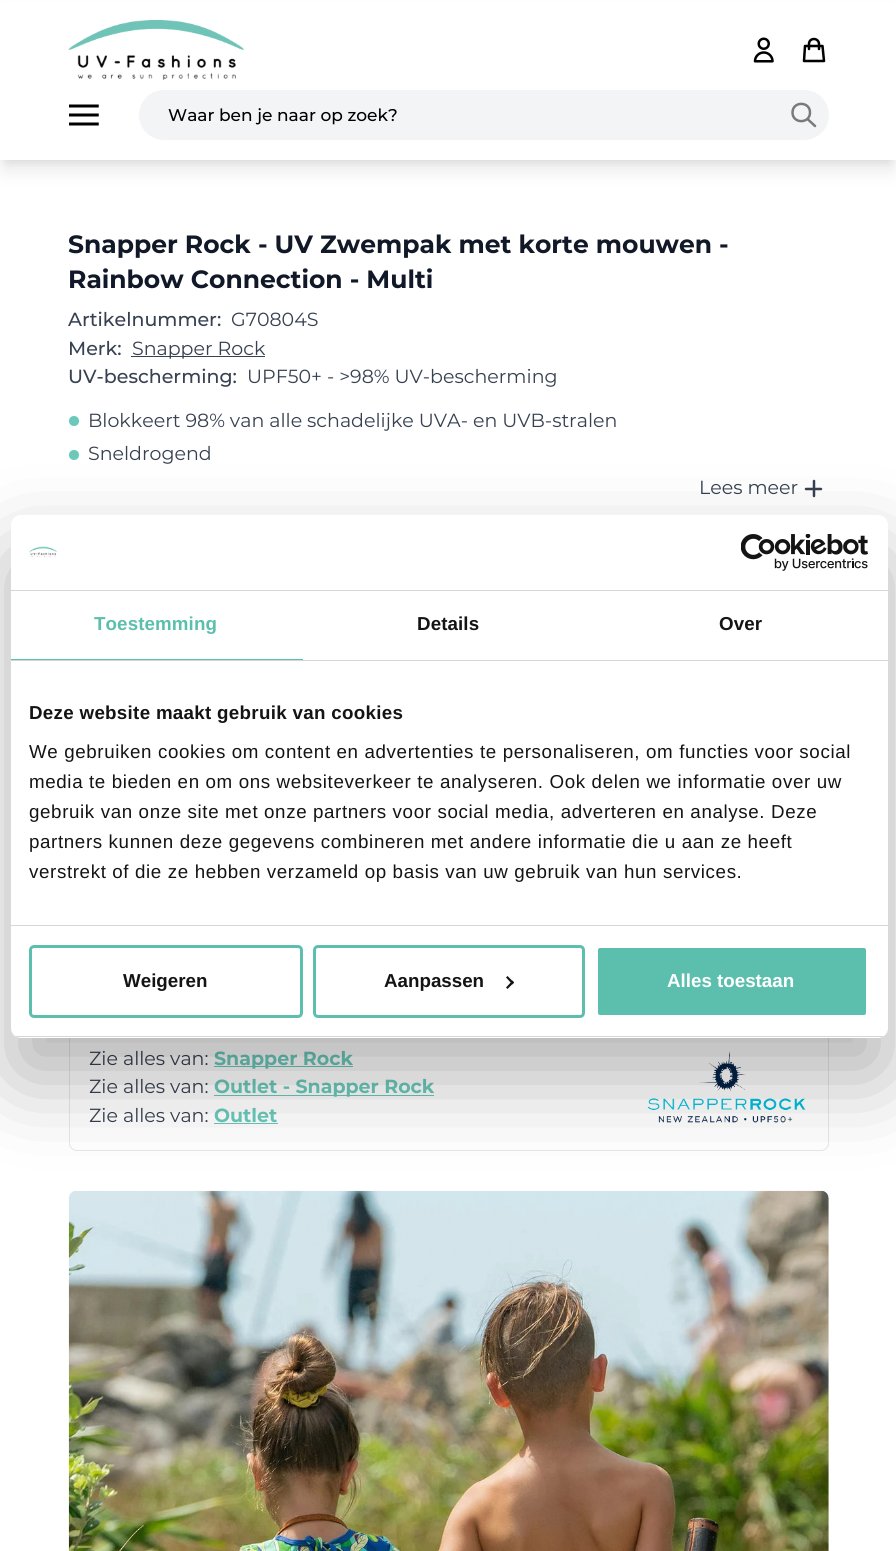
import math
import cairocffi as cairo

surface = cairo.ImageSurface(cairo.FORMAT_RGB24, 896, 1551)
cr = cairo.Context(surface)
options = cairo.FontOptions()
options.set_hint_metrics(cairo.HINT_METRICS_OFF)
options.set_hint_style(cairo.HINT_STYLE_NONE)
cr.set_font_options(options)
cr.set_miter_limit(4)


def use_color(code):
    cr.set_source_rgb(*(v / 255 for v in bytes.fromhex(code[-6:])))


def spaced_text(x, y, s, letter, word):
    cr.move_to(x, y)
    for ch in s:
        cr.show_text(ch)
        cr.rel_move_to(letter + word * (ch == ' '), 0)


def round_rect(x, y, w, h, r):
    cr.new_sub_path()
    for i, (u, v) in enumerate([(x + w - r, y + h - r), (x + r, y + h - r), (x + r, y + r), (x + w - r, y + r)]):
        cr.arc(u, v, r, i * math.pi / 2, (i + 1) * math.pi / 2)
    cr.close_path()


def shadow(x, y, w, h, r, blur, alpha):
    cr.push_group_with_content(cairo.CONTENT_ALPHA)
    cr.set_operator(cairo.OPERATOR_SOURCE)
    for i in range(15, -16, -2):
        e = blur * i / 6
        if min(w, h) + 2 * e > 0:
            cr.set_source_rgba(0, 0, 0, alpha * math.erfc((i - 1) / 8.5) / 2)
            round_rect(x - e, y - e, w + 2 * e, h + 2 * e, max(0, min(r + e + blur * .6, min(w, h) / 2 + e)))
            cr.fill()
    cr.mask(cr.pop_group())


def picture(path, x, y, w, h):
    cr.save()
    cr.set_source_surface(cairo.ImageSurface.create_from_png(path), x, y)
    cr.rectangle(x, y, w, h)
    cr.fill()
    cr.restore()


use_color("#ffffff")
cr.paint()
use_color("#000000")
shadow(5, 10, 886, 150, 0, 4, 0.1)
shadow(4, 16, 889, 153, 0, 9.5, 0.1)
use_color("#ffffff")
cr.rectangle(0, 2, 896, 158)
cr.fill()
picture("img1.png", 68, 20, 176, 60)
picture("img2.png", 753, 37, 21, 26)
cr.new_path()
cr.move_to(819, 49)
cr.line_to(819, 44)
cr.curve_to(819, 41, 816.5, 39, 814, 39)
cr.curve_to(811, 39, 809, 41, 809, 44)
cr.line_to(809, 49)
cr.move_to(805, 46)
cr.line_to(822.5, 46)
cr.line_to(824, 61)
cr.line_to(804, 61)
cr.close_path()
use_color("#000000")
cr.set_line_width(2.5)
cr.set_line_cap(cairo.LINE_CAP_ROUND)
cr.set_line_join(cairo.LINE_JOIN_ROUND)
cr.stroke()
picture("img3.png", 69, 104, 30, 22)
use_color("#f3f4f6")
round_rect(139, 90, 690, 50, 25)
cr.fill()
cr.select_font_face("Montserrat Medium")
cr.set_font_size(17)
use_color("#000000")
cr.move_to(168, 121)
cr.show_text("Waar ben je naar op zoek?")
cr.new_path()
cr.move_to(815, 126)
cr.line_to(807.5, 119)
cr.move_to(810, 112.5)
cr.curve_to(810, 124, 792.5, 124, 792.5, 112.5)
cr.curve_to(792.5, 101, 810, 101, 810, 112.5)
cr.close_path()
use_color("#7a7a7b")
cr.stroke()
cr.select_font_face("Montserrat", cairo.FONT_SLANT_NORMAL, cairo.FONT_WEIGHT_BOLD)
cr.set_font_size(25)
use_color("#111827")
cr.move_to(68, 253)
cr.show_text("Snapper Rock - UV Zwempak met korte mouwen -")
cr.move_to(68, 288)
cr.show_text("Rainbow Connection - Multi")
cr.select_font_face("Montserrat Medium")
cr.set_font_size(19)
use_color("#374151")
cr.move_to(68, 326)
cr.show_text("Artikelnummer:")
cr.select_font_face("Montserrat")
cr.move_to(231, 326)
cr.show_text("G70804S")
cr.select_font_face("Montserrat Medium")
cr.move_to(68, 355)
cr.show_text("Merk:")
cr.rectangle(131, 356, 134, 1)
cr.fill()
cr.select_font_face("Montserrat")
cr.move_to(132, 355)
cr.show_text("Snapper Rock")
cr.select_font_face("Montserrat Medium")
cr.move_to(68, 383)
cr.show_text("UV-bescherming:")
cr.select_font_face("Montserrat")
cr.move_to(247, 383)
cr.show_text("UPF50+ - >98% UV-bescherming")
use_color("#6bc9bb")
cr.new_path()
cr.arc(74, 421, 5, 0, 2 * math.pi)
cr.fill()
use_color("#374151")
cr.move_to(88, 427)
cr.show_text("Blokkeert 98% van alle schadelijke UVA- en UVB-stralen")
use_color("#6bc9bb")
cr.new_path()
cr.arc(74, 455, 5, 0, 2 * math.pi)
cr.fill()
use_color("#374151")
cr.move_to(88, 460)
cr.show_text("Sneldrogend")
cr.move_to(699, 494)
cr.show_text("Lees meer")
cr.new_path()
cr.move_to(814, 481)
cr.line_to(814, 489)
cr.move_to(814, 489)
cr.line_to(814, 496)
cr.move_to(814, 489)
cr.line_to(821, 489)
cr.move_to(814, 489)
cr.line_to(806, 489)
cr.stroke()
round_rect(69.5, 1024.5, 759, 126, 7.5)
use_color("#e5e7eb")
cr.set_line_width(1)
cr.set_line_cap(cairo.LINE_CAP_BUTT)
cr.set_line_join(cairo.LINE_JOIN_MITER)
cr.stroke()
use_color("#374151")
cr.move_to(89, 1065)
cr.show_text("Zie alles van:")
use_color("#6bc9bb")
cr.rectangle(214, 1066, 139, 1)
cr.fill()
cr.select_font_face("Montserrat", cairo.FONT_SLANT_NORMAL, cairo.FONT_WEIGHT_BOLD)
cr.move_to(214, 1065)
cr.show_text("Snapper Rock")
cr.select_font_face("Montserrat")
use_color("#374151")
cr.move_to(89, 1093)
cr.show_text("Zie alles van:")
use_color("#6bc9bb")
cr.rectangle(214, 1095, 220, 1)
cr.fill()
cr.select_font_face("Montserrat", cairo.FONT_SLANT_NORMAL, cairo.FONT_WEIGHT_BOLD)
cr.move_to(214, 1093)
cr.show_text("Outlet - Snapper Rock")
cr.select_font_face("Montserrat")
use_color("#374151")
cr.move_to(89, 1122)
cr.show_text("Zie alles van:")
cr.select_font_face("Montserrat", cairo.FONT_SLANT_NORMAL, cairo.FONT_WEIGHT_BOLD)
use_color("#6bc9bb")
cr.move_to(214, 1122)
cr.show_text("Outlet")
cr.rectangle(214, 1123, 64, 1)
cr.fill()
picture("img4.png", 647, 1051, 159, 72)
picture("img5.png", 68, 1190, 761, 361)
use_color("#000000")
shadow(11, 555, 877, 523, 10, 42.5, 0.3)
use_color("#ffffff")
round_rect(11, 515, 877, 523, 10)
cr.fill()
use_color("#d6d6d6")
cr.rectangle(11, 590, 877, 1)
cr.fill()
picture("img6.png", 29, 546, 28, 12)
picture("img7.png", 741, 534, 127, 37)
cr.rectangle(11, 660, 877, 1)
cr.fill()
use_color("#5cbfad")
cr.rectangle(11, 659, 292, 1)
cr.fill()
cr.select_font_face("Liberation Sans", cairo.FONT_SLANT_NORMAL, cairo.FONT_WEIGHT_BOLD)
cr.set_font_size(18.75)
spaced_text(94, 630, "Toestemming", 0.1, 0)
use_color("#141414")
spaced_text(417, 630, "Details", 0.1, 0)
spaced_text(719, 630, "Over", 0.1, 0)
use_color("#d6d6d6")
cr.rectangle(11, 925, 877, 1)
cr.fill()
use_color("#141414")
spaced_text(29, 719, "Deze website maakt gebruik van cookies", 0.3, 0)
cr.select_font_face("Liberation Sans")
spaced_text(29, 758, "We gebruiken cookies om content en advertenties te personaliseren, om functies voor social", 0.62, 0)
spaced_text(29, 788, "media te bieden en om ons websiteverkeer te analyseren. Ook delen we informatie over uw", 0.62, 0)
spaced_text(29, 818, "gebruik van onze site met onze partners voor social media, adverteren en analyse. Deze", 0.62, 0)
spaced_text(29, 848, "partners kunnen deze gegevens combineren met andere informatie die u aan ze heeft", 0.62, 0)
spaced_text(29, 878, "verstrekt of die ze hebben verzameld op basis van uw gebruik van hun services.", 0.62, 0)
cr.save()
round_rect(11, 515, 877, 523, 10)
cr.clip()
use_color("#d6d6d6")
cr.rectangle(11, 1036, 877, 1)
cr.fill()
cr.restore()
round_rect(30.5, 946.5, 271, 70, 3.5)
use_color("#5cbfad")
cr.set_line_width(3)
cr.stroke()
cr.select_font_face("Liberation Sans", cairo.FONT_SLANT_NORMAL, cairo.FONT_WEIGHT_BOLD)
use_color("#141414")
cr.move_to(123, 987)
cr.show_text("Weigeren")
round_rect(314.5, 946.5, 269, 70, 3.5)
use_color("#5cbfad")
cr.stroke()
use_color("#141414")
cr.move_to(384, 987)
cr.show_text("Aanpassen")
cr.new_path()
cr.move_to(507.5, 976)
cr.line_to(514, 982.5)
cr.line_to(512.5, 984.5)
cr.line_to(506, 977.5)
cr.close_path()
cr.fill()
cr.new_path()
cr.move_to(512.5, 980.5)
cr.line_to(514, 982.5)
cr.line_to(507.5, 989)
cr.line_to(506, 987.5)
cr.close_path()
cr.fill()
use_color("#5cbfad")
round_rect(596.5, 946.5, 271, 70, 3.5)
cr.fill_preserve()
use_color("#ffffff")
cr.stroke()
cr.move_to(667, 987)
cr.show_text("Alles toestaan")
surface.write_to_png("result.png")
